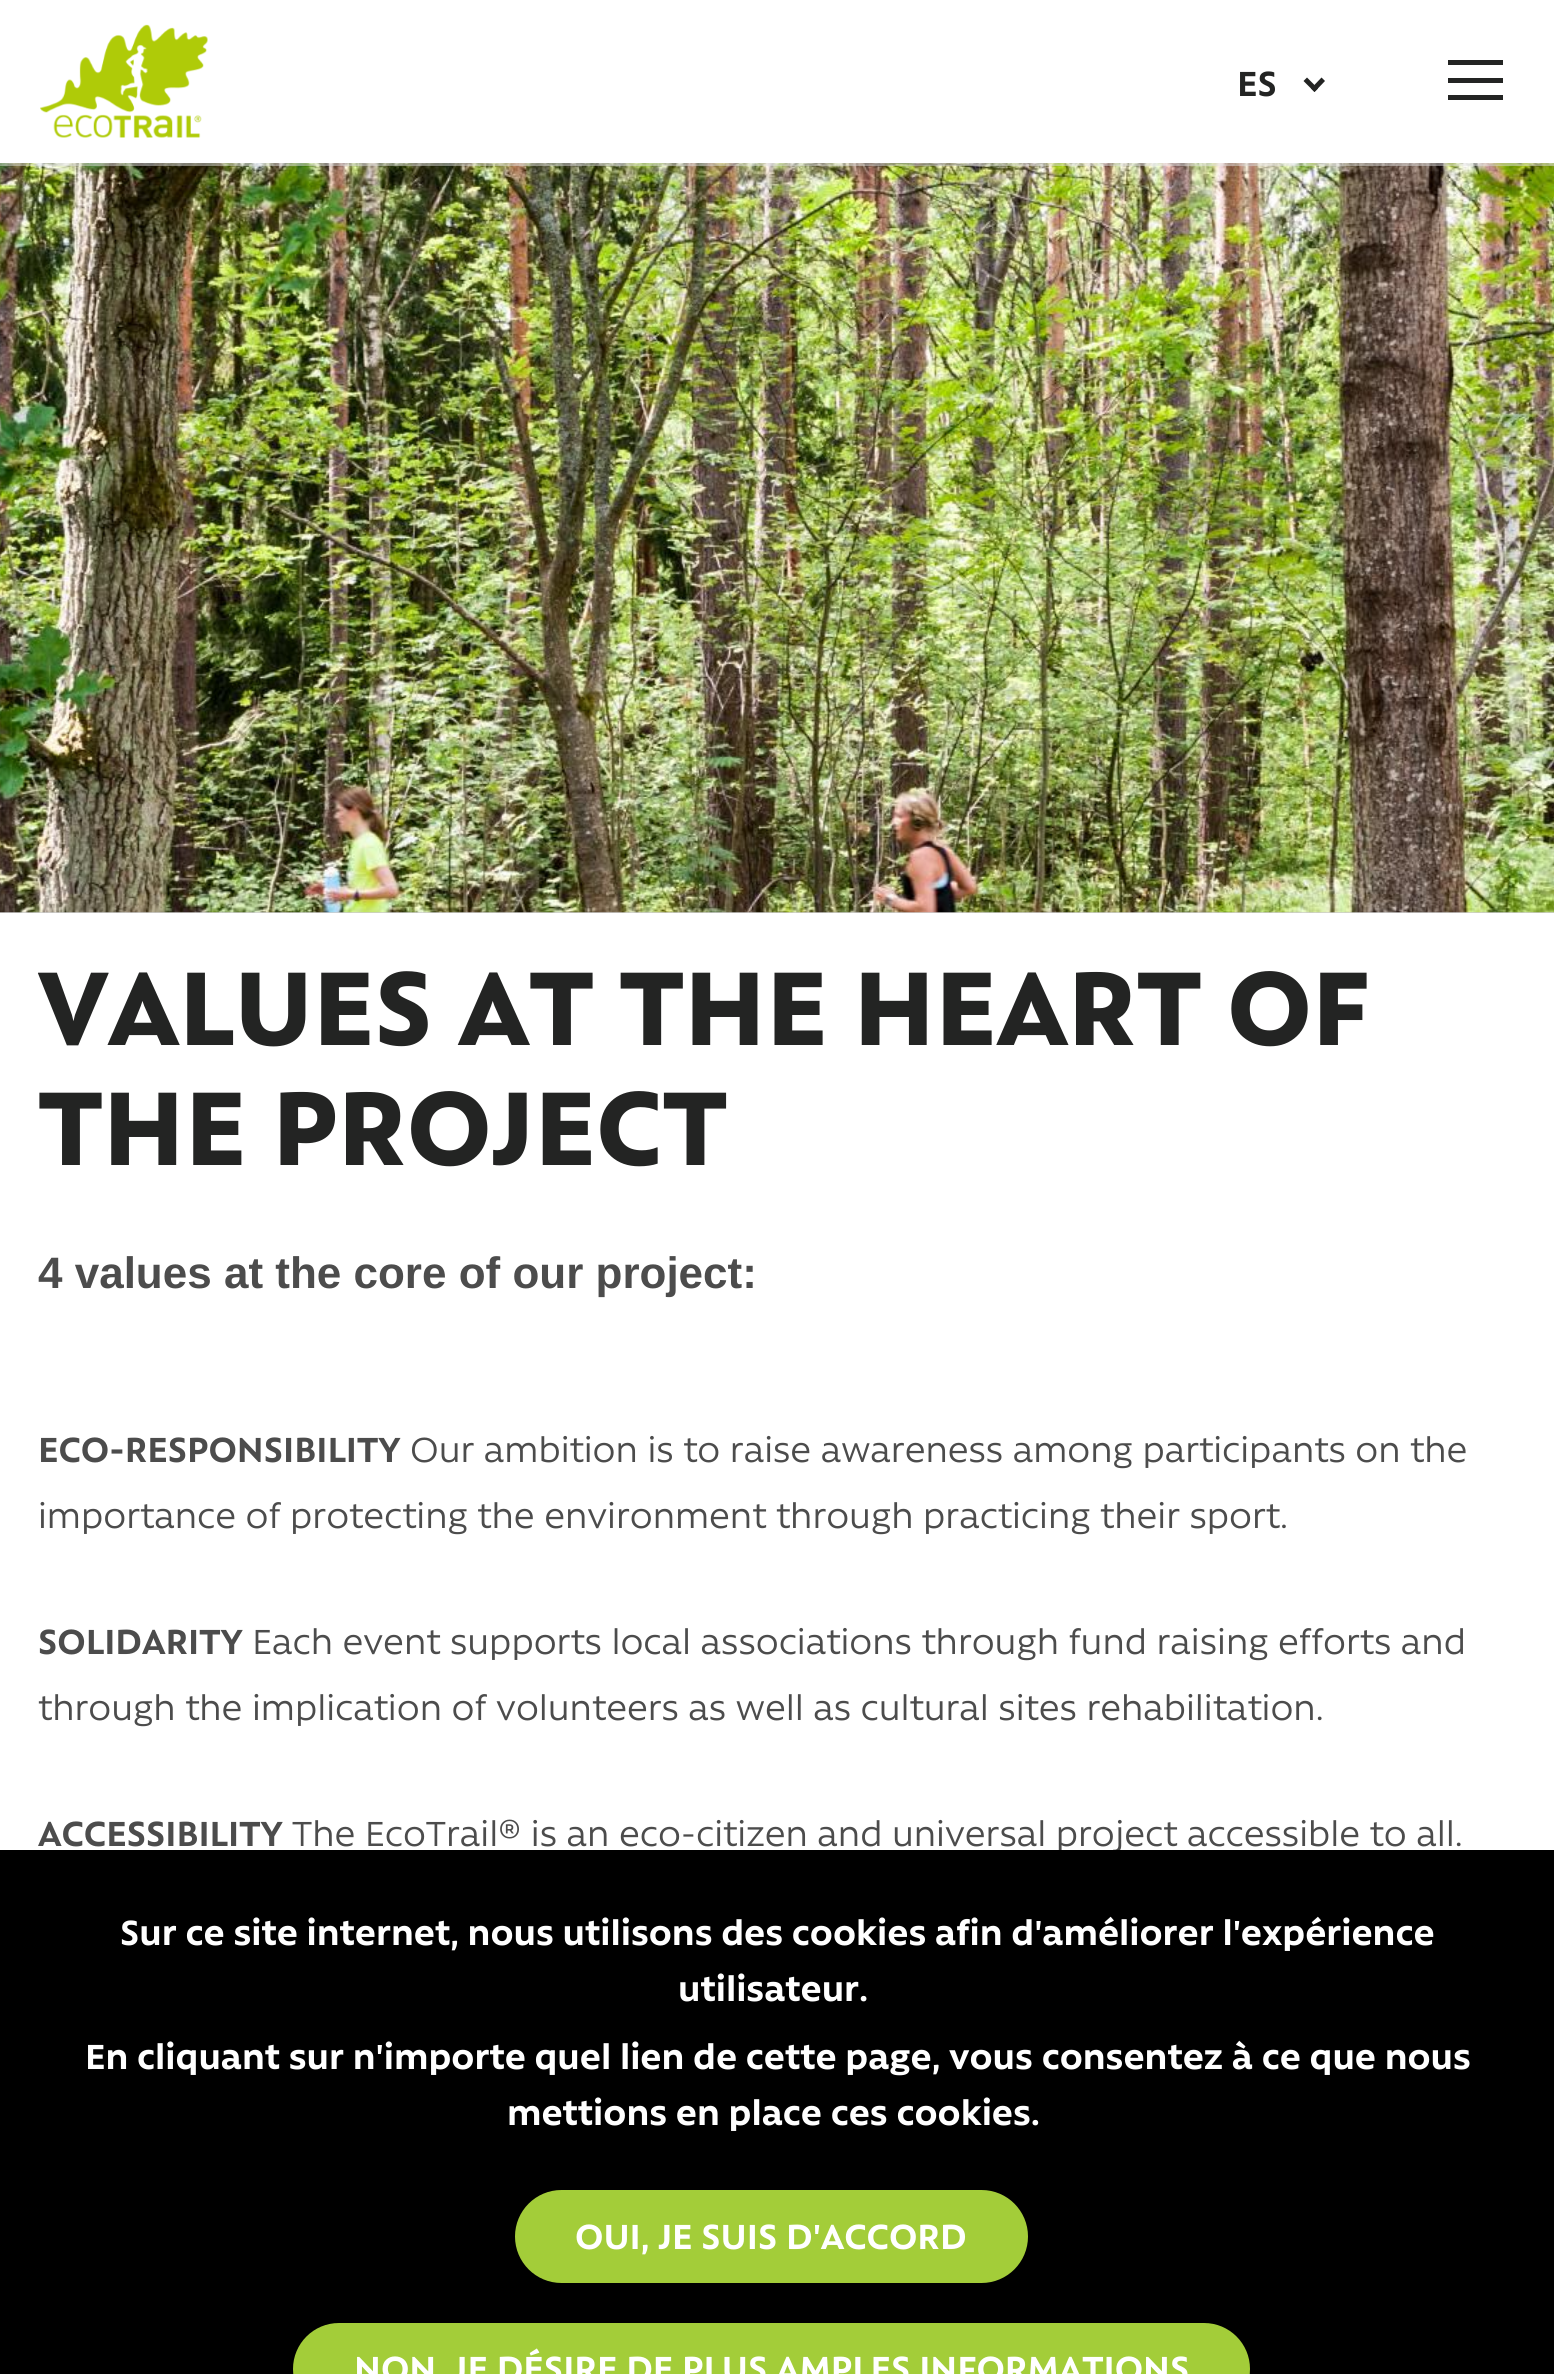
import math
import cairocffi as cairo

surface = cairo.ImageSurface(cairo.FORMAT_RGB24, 1554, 2374)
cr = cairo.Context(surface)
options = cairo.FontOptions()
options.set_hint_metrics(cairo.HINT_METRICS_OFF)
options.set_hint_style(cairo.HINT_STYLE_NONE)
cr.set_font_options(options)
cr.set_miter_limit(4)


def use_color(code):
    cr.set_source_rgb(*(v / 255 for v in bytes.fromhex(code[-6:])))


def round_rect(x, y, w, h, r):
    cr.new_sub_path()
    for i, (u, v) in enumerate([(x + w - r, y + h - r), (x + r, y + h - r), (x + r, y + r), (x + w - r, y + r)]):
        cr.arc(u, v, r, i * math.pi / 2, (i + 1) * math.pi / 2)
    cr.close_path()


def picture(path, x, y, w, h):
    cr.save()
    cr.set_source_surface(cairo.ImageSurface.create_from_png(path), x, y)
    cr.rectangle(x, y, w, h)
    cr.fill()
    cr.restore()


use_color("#ffffff")
cr.paint()
use_color("#cccccc")
cr.rectangle(0, 912, 1554, 1)
cr.fill()
picture("img2.png", 0, 163, 1554, 750)
cr.set_source_rgba(0.89, 0.89, 0.89, 0.5)
cr.rectangle(0, 163, 1554, 3)
cr.fill()
picture("img1.png", 40, 24, 168, 114)
cr.select_font_face("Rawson", cairo.FONT_SLANT_NORMAL, cairo.FONT_WEIGHT_BOLD)
cr.set_font_size(40)
use_color("#232423")
cr.move_to(1237, 96)
cr.show_text("ES")
cr.new_path()
cr.move_to(1325, 81)
cr.line_to(1314.5, 92)
cr.line_to(1311, 88.5)
cr.line_to(1321.5, 77.5)
cr.close_path()
cr.fill()
cr.new_path()
cr.move_to(1318, 88.5)
cr.line_to(1314.5, 92)
cr.line_to(1303.5, 81)
cr.line_to(1307, 77.5)
cr.close_path()
cr.fill()
cr.rectangle(1448, 60, 55, 5)
cr.fill()
cr.rectangle(1448, 95, 55, 5)
cr.fill()
cr.rectangle(1448, 78, 55, 5)
cr.fill()
cr.select_font_face("Rawson ExtraBold")
cr.set_font_size(120)
cr.move_to(38, 1045)
cr.show_text("VALUES AT THE HEART OF")
cr.move_to(38, 1165)
cr.show_text("THE PROJECT")
cr.select_font_face("Liberation Sans", cairo.FONT_SLANT_NORMAL, cairo.FONT_WEIGHT_BOLD)
cr.set_font_size(44)
use_color("#4c4c4c")
cr.move_to(38, 1288)
cr.show_text("4 values at the core of our project:")
cr.select_font_face("Rawson", cairo.FONT_SLANT_NORMAL, cairo.FONT_WEIGHT_BOLD)
cr.set_font_size(40)
cr.move_to(38, 1462)
cr.show_text("ECO-RESPONSIBILITY")
cr.select_font_face("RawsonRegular")
cr.move_to(410, 1462)
cr.show_text("Our ambition is to raise awareness among participants on the")
cr.move_to(38, 1528)
cr.show_text("importance of protecting the environment through practicing their sport.")
cr.select_font_face("Rawson", cairo.FONT_SLANT_NORMAL, cairo.FONT_WEIGHT_BOLD)
cr.move_to(38, 1654)
cr.show_text("SOLIDARITY")
cr.select_font_face("RawsonRegular")
cr.move_to(252, 1654)
cr.show_text("Each event supports local associations through fund raising efforts and")
cr.move_to(38, 1720)
cr.show_text("through the implication of volunteers as well as cultural sites rehabilitation.")
cr.select_font_face("Rawson", cairo.FONT_SLANT_NORMAL, cairo.FONT_WEIGHT_BOLD)
cr.move_to(38, 1846)
cr.show_text("ACCESSIBILITY")
cr.select_font_face("RawsonRegular")
cr.move_to(292, 1846)
cr.show_text("The EcoTrail® is an eco-citizen and universal project accessible to all.")
use_color("#000000")
cr.rectangle(0, 1850, 1554, 524)
cr.fill()
cr.select_font_face("Rawson", cairo.FONT_SLANT_NORMAL, cairo.FONT_WEIGHT_BOLD)
use_color("#ffffff")
cr.move_to(120, 1945)
cr.show_text("Sur ce site internet, nous utilisons des cookies afin d'améliorer l'expérience")
cr.move_to(678, 2001)
cr.show_text("utilisateur.")
cr.move_to(85, 2069)
cr.show_text("En cliquant sur n'importe quel lien de cette page, vous consentez à ce que nous")
cr.move_to(507, 2125)
cr.show_text("mettions en place ces cookies.")
use_color("#a3cd39")
round_rect(515, 2190, 513, 93, 46.5)
cr.fill()
use_color("#ffffff")
cr.move_to(575, 2249)
cr.show_text("OUI, JE SUIS D'ACCORD")
use_color("#a3cd39")
round_rect(293, 2323, 957, 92, 46)
cr.fill()
use_color("#ffffff")
cr.move_to(354, 2381)
cr.show_text("NON, JE DÉSIRE DE PLUS AMPLES INFORMATIONS")
surface.write_to_png("result.png")
